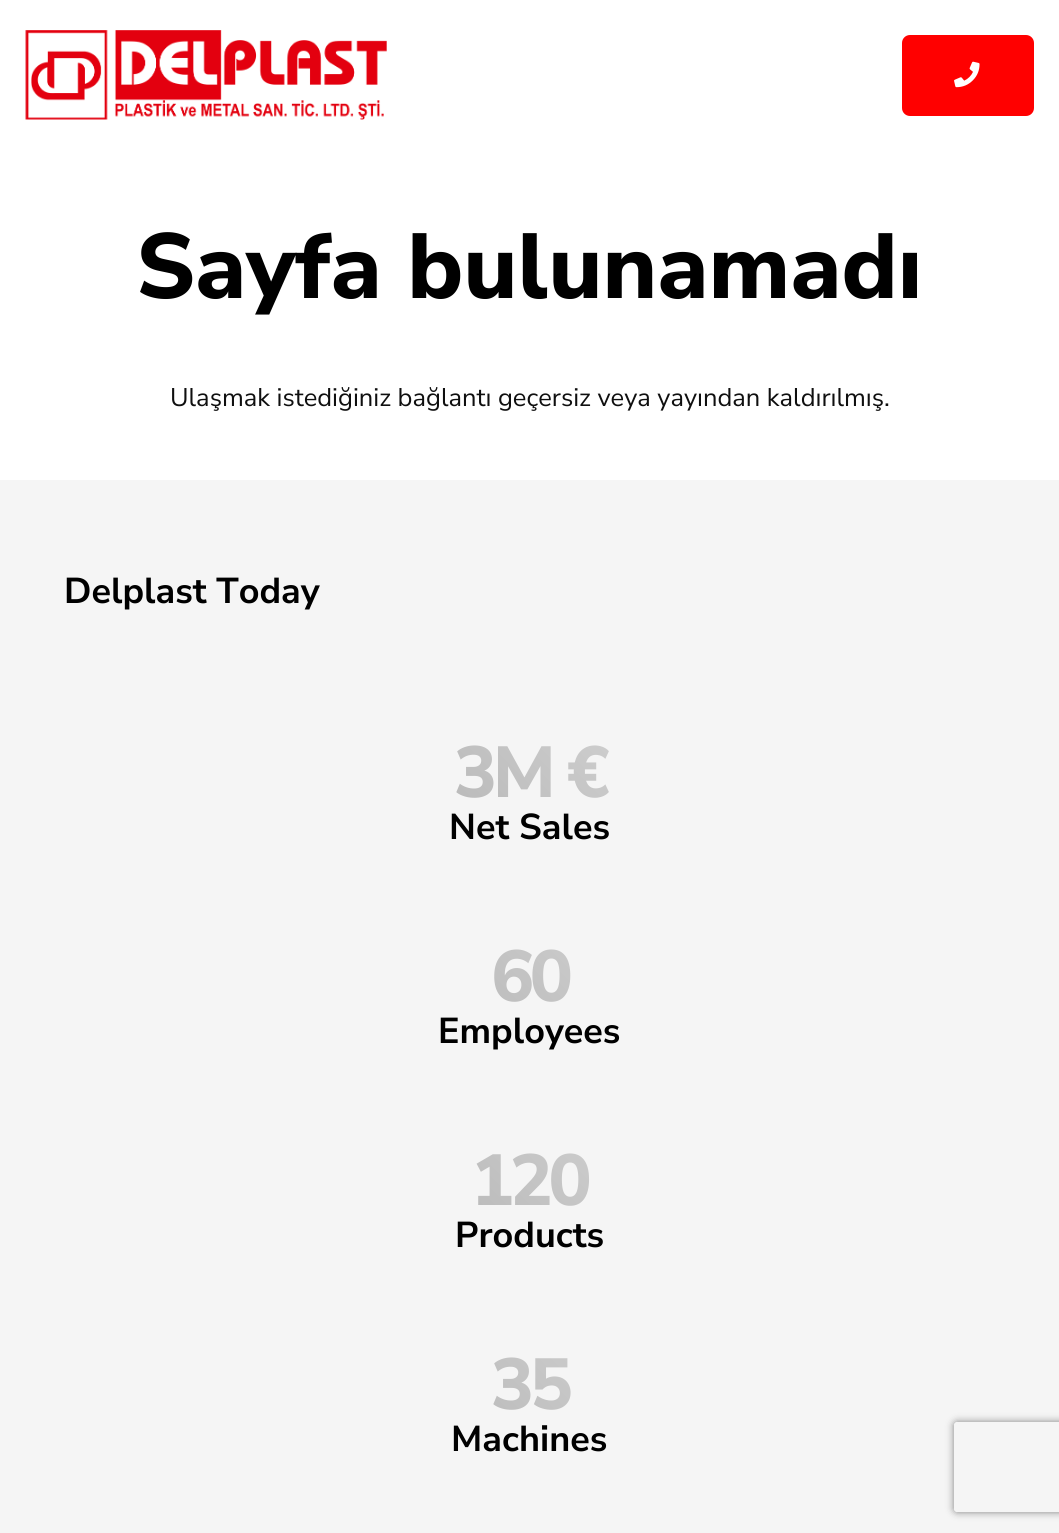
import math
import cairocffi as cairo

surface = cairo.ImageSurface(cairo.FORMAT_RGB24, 1059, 1533)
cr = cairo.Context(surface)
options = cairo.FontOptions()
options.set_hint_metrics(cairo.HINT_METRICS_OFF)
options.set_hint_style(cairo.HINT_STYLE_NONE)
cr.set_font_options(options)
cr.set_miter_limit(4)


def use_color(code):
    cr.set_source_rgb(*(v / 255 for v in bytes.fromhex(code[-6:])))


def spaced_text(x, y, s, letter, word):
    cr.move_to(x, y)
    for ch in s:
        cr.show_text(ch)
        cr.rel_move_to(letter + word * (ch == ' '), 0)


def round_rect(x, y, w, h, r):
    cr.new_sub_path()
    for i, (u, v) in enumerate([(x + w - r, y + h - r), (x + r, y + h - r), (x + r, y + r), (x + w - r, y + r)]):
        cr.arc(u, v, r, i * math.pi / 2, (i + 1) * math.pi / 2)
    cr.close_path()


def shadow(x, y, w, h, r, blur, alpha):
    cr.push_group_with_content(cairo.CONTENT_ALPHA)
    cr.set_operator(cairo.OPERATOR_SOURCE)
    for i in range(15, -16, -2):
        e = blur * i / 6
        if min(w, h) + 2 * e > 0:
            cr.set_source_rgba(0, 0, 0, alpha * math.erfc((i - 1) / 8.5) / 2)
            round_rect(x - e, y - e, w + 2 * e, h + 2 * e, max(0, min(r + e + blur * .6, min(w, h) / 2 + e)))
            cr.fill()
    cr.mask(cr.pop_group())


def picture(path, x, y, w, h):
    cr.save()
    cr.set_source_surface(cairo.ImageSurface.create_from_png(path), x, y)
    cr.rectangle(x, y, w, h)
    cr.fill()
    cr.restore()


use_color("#ffffff")
cr.paint()
picture("img1.png", 25, 30, 362, 90)
use_color("#ff0000")
round_rect(902, 35, 132, 81, 8)
cr.fill()
picture("img2.png", 954, 61, 26, 27)
cr.select_font_face("Nunito Sans ExtraBold")
cr.set_font_size(92)
use_color("#000000")
cr.move_to(136, 298)
cr.show_text("Sayfa bulunamadı")
cr.select_font_face("Nunito Sans")
cr.set_font_size(25.5)
use_color("#0f0f0f")
cr.move_to(170, 406)
cr.show_text("Ulaşmak istediğiniz bağlantı geçersiz veya yayından kaldırılmış.")
use_color("#f5f5f5")
cr.rectangle(0, 480, 1059, 1053)
cr.fill()
cr.select_font_face("Nunito Sans", cairo.FONT_SLANT_NORMAL, cairo.FONT_WEIGHT_BOLD)
cr.set_font_size(36)
use_color("#000000")
cr.move_to(64, 603)
cr.show_text("Delplast Today")
cr.select_font_face("Nunito Sans ExtraBold")
cr.set_font_size(72)
gradient = cairo.LinearGradient(279, 1024, 780, 522)
gradient.add_color_stop_rgba(0, 0.6, 0.6, 0.6, 1)
gradient.add_color_stop_rgba(1, 0.933, 0.933, 0.933, 1)
cr.set_source(gradient)
spaced_text(454, 797, "3M €", -4.5, 0)
cr.select_font_face("Nunito Sans", cairo.FONT_SLANT_NORMAL, cairo.FONT_WEIGHT_BOLD)
cr.set_font_size(36)
use_color("#000000")
cr.move_to(449, 839)
cr.show_text("Net Sales")
cr.select_font_face("Nunito Sans ExtraBold")
cr.set_font_size(72)
gradient = cairo.LinearGradient(279, 1228, 780, 726)
gradient.add_color_stop_rgba(0, 0.6, 0.6, 0.6, 1)
gradient.add_color_stop_rgba(1, 0.933, 0.933, 0.933, 1)
cr.set_source(gradient)
spaced_text(491, 1001, "60", -4.5, 0)
cr.select_font_face("Nunito Sans", cairo.FONT_SLANT_NORMAL, cairo.FONT_WEIGHT_BOLD)
cr.set_font_size(36)
use_color("#000000")
cr.move_to(438, 1043)
cr.show_text("Employees")
cr.select_font_face("Nunito Sans ExtraBold")
cr.set_font_size(72)
gradient = cairo.LinearGradient(279, 1431, 780, 930)
gradient.add_color_stop_rgba(0, 0.6, 0.6, 0.6, 1)
gradient.add_color_stop_rgba(1, 0.933, 0.933, 0.933, 1)
cr.set_source(gradient)
spaced_text(471, 1205, "120", -4.5, 0)
cr.select_font_face("Nunito Sans", cairo.FONT_SLANT_NORMAL, cairo.FONT_WEIGHT_BOLD)
cr.set_font_size(36)
use_color("#000000")
cr.move_to(455, 1247)
cr.show_text("Products")
cr.select_font_face("Nunito Sans ExtraBold")
cr.set_font_size(72)
gradient = cairo.LinearGradient(279, 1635, 780, 1134)
gradient.add_color_stop_rgba(0, 0.6, 0.6, 0.6, 1)
gradient.add_color_stop_rgba(1, 0.933, 0.933, 0.933, 1)
cr.set_source(gradient)
spaced_text(491, 1409, "35", -4.5, 0)
cr.select_font_face("Nunito Sans", cairo.FONT_SLANT_NORMAL, cairo.FONT_WEIGHT_BOLD)
cr.set_font_size(36)
use_color("#000000")
cr.move_to(451, 1451)
cr.show_text("Machines")
cr.save()
cr.set_fill_rule(cairo.FILL_RULE_EVEN_ODD)
cr.new_path()
cr.move_to(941, 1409)
cr.line_to(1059, 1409)
cr.line_to(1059, 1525)
cr.line_to(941, 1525)
cr.close_path()
cr.move_to(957, 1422)
cr.line_to(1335, 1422)
cr.curve_to(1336.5, 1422, 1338, 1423.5, 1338, 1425)
cr.line_to(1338, 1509)
cr.curve_to(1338, 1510.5, 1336.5, 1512, 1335, 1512)
cr.line_to(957, 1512)
cr.curve_to(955.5, 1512, 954, 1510.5, 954, 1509)
cr.line_to(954, 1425)
cr.curve_to(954, 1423.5, 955.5, 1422, 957, 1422)
cr.close_path()
cr.clip()
use_color("#808080")
shadow(954, 1422, 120, 90, 3, 4, 1)
cr.restore()
surface.write_to_png("result.png")
